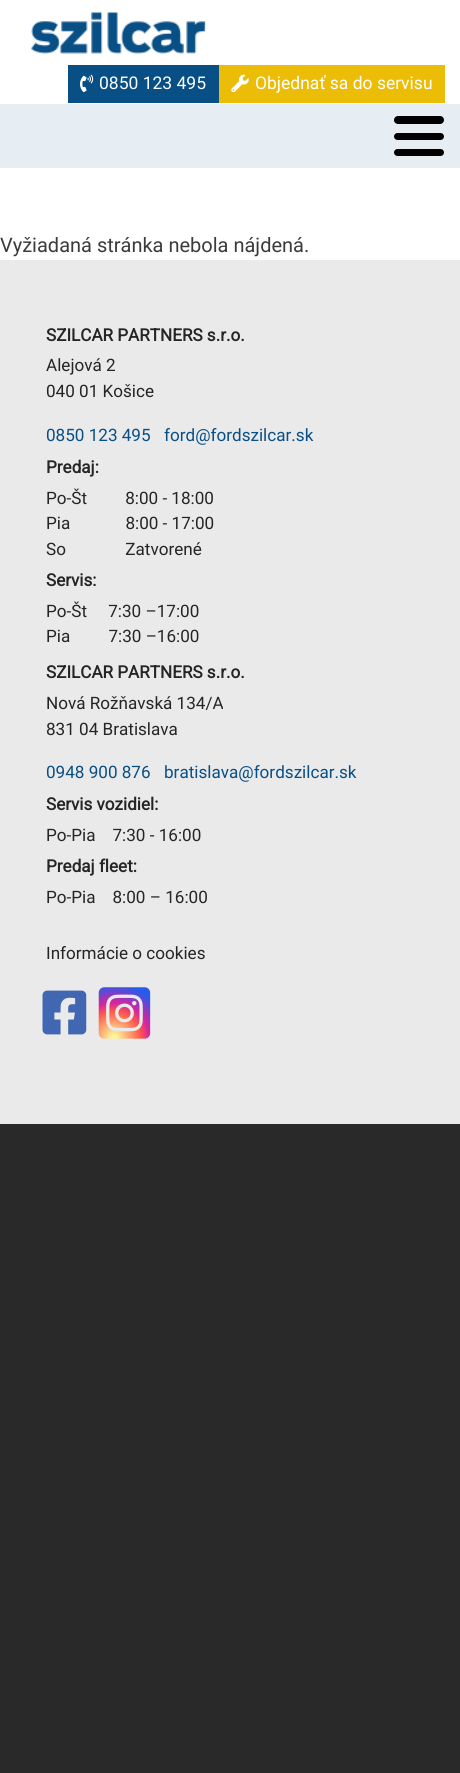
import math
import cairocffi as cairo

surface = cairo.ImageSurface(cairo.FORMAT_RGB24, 460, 1773)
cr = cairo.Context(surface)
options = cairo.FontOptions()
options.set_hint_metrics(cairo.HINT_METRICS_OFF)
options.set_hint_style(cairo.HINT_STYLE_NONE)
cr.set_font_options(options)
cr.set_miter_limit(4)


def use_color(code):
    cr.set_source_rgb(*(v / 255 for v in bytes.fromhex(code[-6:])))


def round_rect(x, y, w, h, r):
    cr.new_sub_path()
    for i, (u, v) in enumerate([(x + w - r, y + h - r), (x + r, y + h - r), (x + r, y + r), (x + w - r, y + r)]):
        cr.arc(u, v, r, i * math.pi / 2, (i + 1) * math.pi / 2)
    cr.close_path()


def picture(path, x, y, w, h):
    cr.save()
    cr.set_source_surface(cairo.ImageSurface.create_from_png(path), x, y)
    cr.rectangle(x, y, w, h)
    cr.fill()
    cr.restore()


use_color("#292929")
cr.paint()
use_color("#ffffff")
cr.rectangle(0, 0, 460, 260)
cr.fill()
picture("img1.png", 31, 12, 175, 42)
use_color("#084f85")
cr.rectangle(68, 65, 151, 38)
cr.fill()
picture("img2.png", 80, 74, 14, 19)
cr.select_font_face("Roboto")
cr.set_font_size(17.5)
use_color("#ffffff")
cr.move_to(99, 89)
cr.show_text("0850 123 495")
use_color("#ebbd06")
cr.rectangle(219, 65, 226, 38)
cr.fill()
picture("img3.png", 231, 74, 18, 19)
use_color("#ffffff")
cr.move_to(255, 89)
cr.show_text("Objednať sa do servisu")
use_color("#e6edf3")
cr.rectangle(0, 104, 460, 64)
cr.fill()
use_color("#000000")
round_rect(394, 116, 50, 8, 4)
cr.fill()
round_rect(394, 133, 50, 7, 3.5)
cr.fill()
round_rect(394, 149, 50, 7, 3.5)
cr.fill()
cr.set_font_size(20)
use_color("#3b3b3b")
cr.move_to(0, 252)
cr.show_text("Vyžiadaná stránka nebola nájdená.")
use_color("#eaeaea")
cr.rectangle(0, 260, 460, 864)
cr.fill()
cr.select_font_face("Roboto", cairo.FONT_SLANT_NORMAL, cairo.FONT_WEIGHT_BOLD)
cr.set_font_size(17.1)
use_color("#262525")
cr.move_to(46, 341)
cr.show_text("SZILCAR PARTNERS s.r.o.")
cr.select_font_face("Roboto")
cr.move_to(46, 371)
cr.show_text("Alejová 2")
cr.move_to(46, 397)
cr.show_text("040 01 Košice")
use_color("#084f85")
cr.move_to(46, 441)
cr.show_text("0850 123 495")
cr.move_to(164, 441)
cr.show_text("ford@fordszilcar.sk")
cr.select_font_face("Roboto", cairo.FONT_SLANT_NORMAL, cairo.FONT_WEIGHT_BOLD)
use_color("#262525")
cr.move_to(46, 473)
cr.show_text("Predaj:")
cr.select_font_face("Roboto")
cr.move_to(46, 504)
cr.show_text("Po-Št         8:00 - 18:00")
cr.move_to(46, 529)
cr.show_text("Pia             8:00 - 17:00")
cr.move_to(46, 555)
cr.show_text("So              Zatvorené")
cr.select_font_face("Roboto", cairo.FONT_SLANT_NORMAL, cairo.FONT_WEIGHT_BOLD)
cr.move_to(46, 586)
cr.show_text("Servis:")
cr.select_font_face("Roboto")
cr.move_to(46, 617)
cr.show_text("Po-Št     7:30 –17:00")
cr.move_to(46, 642)
cr.show_text("Pia         7:30 –16:00")
cr.select_font_face("Roboto", cairo.FONT_SLANT_NORMAL, cairo.FONT_WEIGHT_BOLD)
cr.move_to(46, 678)
cr.show_text("SZILCAR PARTNERS s.r.o.")
cr.select_font_face("Roboto")
cr.move_to(46, 709)
cr.show_text("Nová Rožňavská 134/A")
cr.move_to(46, 735)
cr.show_text("831 04 Bratislava")
use_color("#084f85")
cr.move_to(46, 778)
cr.show_text("0948 900 876")
cr.move_to(164, 778)
cr.show_text("bratislava@fordszilcar.sk")
cr.select_font_face("Roboto", cairo.FONT_SLANT_NORMAL, cairo.FONT_WEIGHT_BOLD)
use_color("#262525")
cr.move_to(46, 810)
cr.show_text("Servis vozidiel:")
cr.select_font_face("Roboto")
cr.move_to(46, 841)
cr.show_text("Po-Pia    7:30 - 16:00")
cr.select_font_face("Roboto", cairo.FONT_SLANT_NORMAL, cairo.FONT_WEIGHT_BOLD)
cr.move_to(46, 872)
cr.show_text("Predaj fleet:")
cr.select_font_face("Roboto")
cr.move_to(46, 903)
cr.show_text("Po-Pia    8:00 – 16:00")
cr.move_to(46, 959)
cr.show_text("Informácie o cookies")
picture("img4.png", 42, 990, 45, 45)
picture("img5.png", 98, 987, 53, 52)
surface.write_to_png("result.png")
